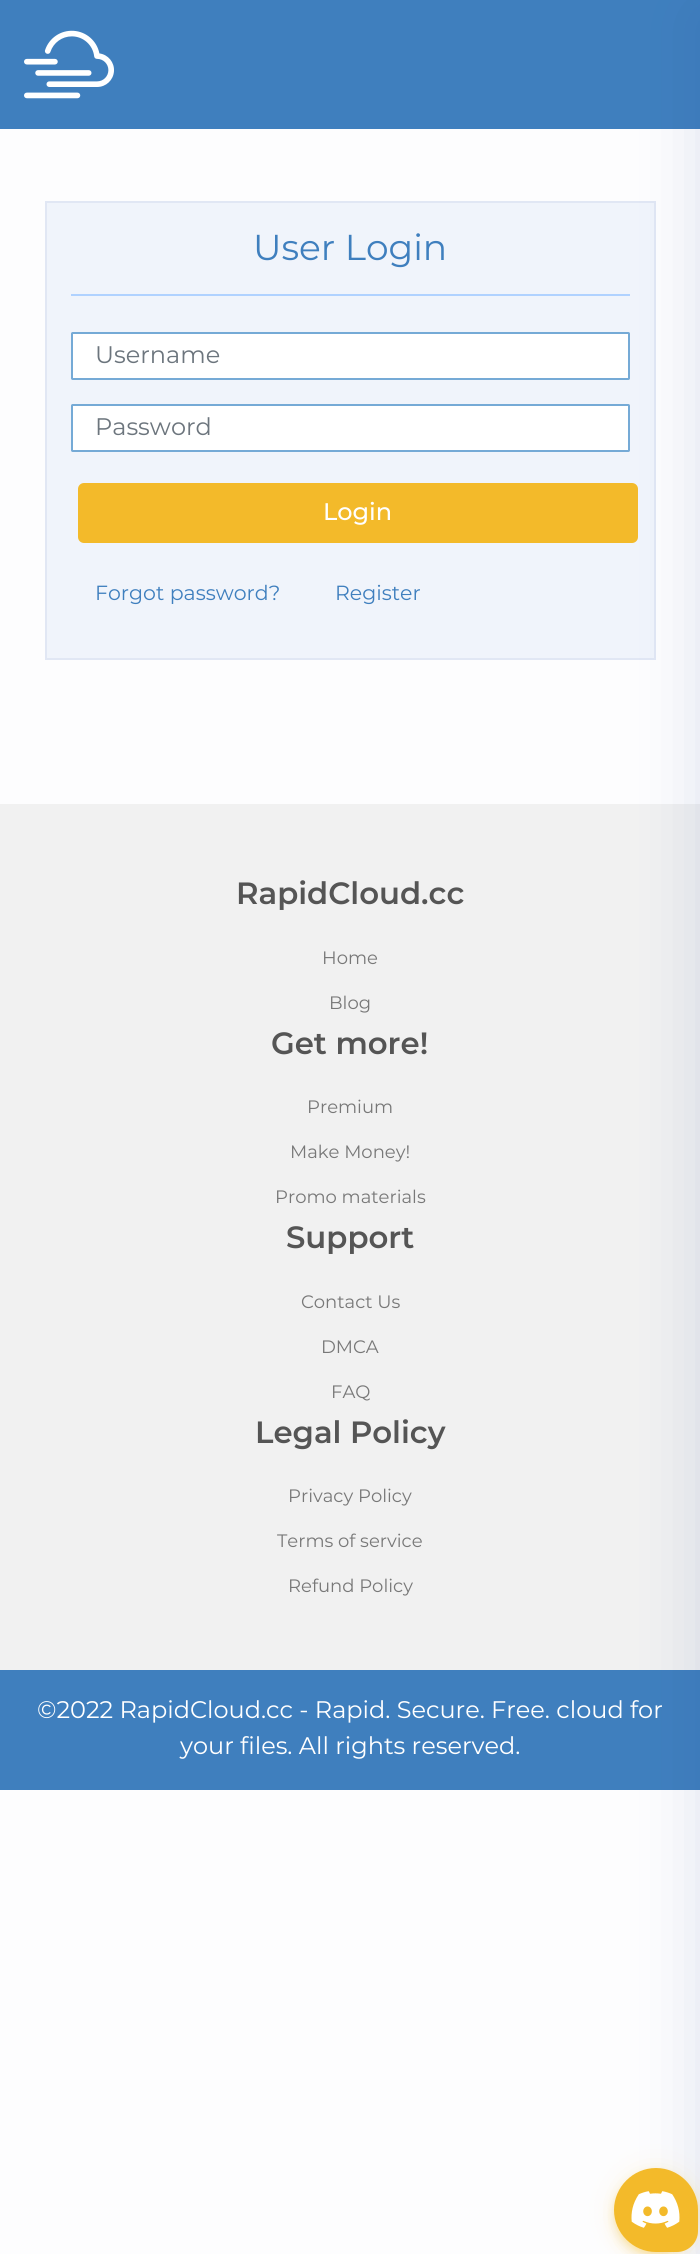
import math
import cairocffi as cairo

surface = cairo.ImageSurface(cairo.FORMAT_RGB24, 700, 2254)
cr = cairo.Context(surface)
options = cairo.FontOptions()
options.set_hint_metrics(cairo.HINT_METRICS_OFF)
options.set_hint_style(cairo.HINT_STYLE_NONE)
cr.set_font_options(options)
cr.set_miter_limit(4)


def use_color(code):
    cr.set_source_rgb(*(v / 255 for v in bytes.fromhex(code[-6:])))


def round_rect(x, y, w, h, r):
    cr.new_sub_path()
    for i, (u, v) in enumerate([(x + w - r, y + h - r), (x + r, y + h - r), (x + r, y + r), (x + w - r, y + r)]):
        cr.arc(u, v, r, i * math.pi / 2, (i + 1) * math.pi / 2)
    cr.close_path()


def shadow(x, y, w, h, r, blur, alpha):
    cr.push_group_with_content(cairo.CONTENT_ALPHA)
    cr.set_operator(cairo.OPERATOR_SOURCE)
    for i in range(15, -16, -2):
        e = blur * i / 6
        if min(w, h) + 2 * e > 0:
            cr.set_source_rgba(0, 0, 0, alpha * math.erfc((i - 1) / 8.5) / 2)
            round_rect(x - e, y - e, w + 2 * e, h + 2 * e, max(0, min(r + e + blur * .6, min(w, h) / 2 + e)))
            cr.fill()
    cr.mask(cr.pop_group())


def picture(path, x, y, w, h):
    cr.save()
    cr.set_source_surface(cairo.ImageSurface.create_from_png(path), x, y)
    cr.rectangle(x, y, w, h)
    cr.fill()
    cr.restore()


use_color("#fdfdfe")
cr.paint()
use_color("#3f7fbe")
cr.rectangle(0, 0, 700, 129)
cr.fill()
picture("img1.png", 24, 30, 90, 69)
use_color("#f0f4fb")
cr.rectangle(46, 202, 609, 457)
cr.fill_preserve()
use_color("#e1e7f4")
cr.stroke()
use_color("#b0d2ff")
cr.rectangle(71, 294, 559, 2)
cr.fill()
use_color("#ffffff")
round_rect(72, 333, 557, 46, 0.5)
cr.fill_preserve()
use_color("#75aad6")
cr.stroke()
use_color("#ffffff")
round_rect(72, 405, 557, 46, 0.5)
cr.fill_preserve()
use_color("#75aad6")
cr.stroke()
use_color("#f3ba2a")
round_rect(78, 483, 560, 60, 6)
cr.fill()
use_color("#f1f1f1")
cr.rectangle(0, 804, 700, 866)
cr.fill()
use_color("#3f7fbe")
cr.rectangle(0, 1670, 700, 120)
cr.fill()
use_color("#234598")
shadow(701, 14, 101, 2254, 0, 34, 0.15)
cr.select_font_face("Montserrat")
cr.set_font_size(36)
use_color("#3f7fbe")
cr.move_to(253, 260)
cr.show_text("User Login")
cr.set_font_size(24)
use_color("#6c757d")
cr.move_to(95, 363)
cr.show_text("Username")
cr.move_to(95, 435)
cr.show_text("Password")
cr.select_font_face("Montserrat Medium")
use_color("#ffffff")
cr.move_to(323, 520)
cr.show_text("Login")
cr.select_font_face("Montserrat")
cr.set_font_size(20.5)
use_color("#3f7fbe")
cr.move_to(95, 600)
cr.show_text("Forgot password?")
cr.move_to(335, 600)
cr.show_text("Register")
cr.select_font_face("Montserrat SemiBold")
cr.set_font_size(30.75)
use_color("#555555")
cr.move_to(236, 904)
cr.show_text("RapidCloud.cc")
cr.select_font_face("Montserrat")
cr.set_font_size(18)
use_color("#787878")
cr.move_to(322, 964)
cr.show_text("Home")
cr.move_to(329, 1009)
cr.show_text("Blog")
cr.select_font_face("Montserrat SemiBold")
cr.set_font_size(30.75)
use_color("#555555")
cr.move_to(271, 1054)
cr.show_text("Get more!")
cr.select_font_face("Montserrat")
cr.set_font_size(18)
use_color("#787878")
cr.move_to(307, 1113)
cr.show_text("Premium")
cr.move_to(290, 1158)
cr.show_text("Make Money!")
cr.move_to(275, 1203)
cr.show_text("Promo materials")
cr.select_font_face("Montserrat SemiBold")
cr.set_font_size(30.75)
use_color("#555555")
cr.move_to(286, 1248)
cr.show_text("Support")
cr.select_font_face("Montserrat")
cr.set_font_size(18)
use_color("#787878")
cr.move_to(301, 1308)
cr.show_text("Contact Us")
cr.move_to(321, 1353)
cr.show_text("DMCA")
cr.move_to(331, 1398)
cr.show_text("FAQ")
cr.select_font_face("Montserrat SemiBold")
cr.set_font_size(30.75)
use_color("#555555")
cr.move_to(255, 1443)
cr.show_text("Legal Policy")
cr.select_font_face("Montserrat")
cr.set_font_size(18)
use_color("#787878")
cr.move_to(288, 1502)
cr.show_text("Privacy Policy")
cr.move_to(277, 1547)
cr.show_text("Terms of service")
cr.move_to(288, 1592)
cr.show_text("Refund Policy")
cr.set_font_size(24)
use_color("#ffffff")
cr.move_to(37, 1718)
cr.show_text("©2022 RapidCloud.cc - Rapid. Secure. Free. cloud for")
cr.move_to(180, 1754)
cr.show_text("your files. All rights reserved.")
use_color("#f3ba2a")
shadow(614, 2169, 84, 84, 42, 13.5, 0.12)
shadow(614, 2177, 84, 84, 42, 7.5, 0.14)
shadow(615, 2174, 81, 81, 40.5, 4, 0.3)
use_color("#f3ba2a")
cr.new_path()
cr.move_to(656, 2168)
cr.curve_to(679, 2168, 698, 2187, 698, 2210)
cr.line_to(698, 2231)
cr.curve_to(698, 2242.5, 688.5, 2252, 677, 2252)
cr.line_to(656, 2252)
cr.curve_to(633, 2252, 614, 2233, 614, 2210)
cr.curve_to(614, 2187, 633, 2168, 656, 2168)
cr.close_path()
cr.fill()
picture("img2.png", 631, 2191, 49, 37)
surface.write_to_png("result.png")
